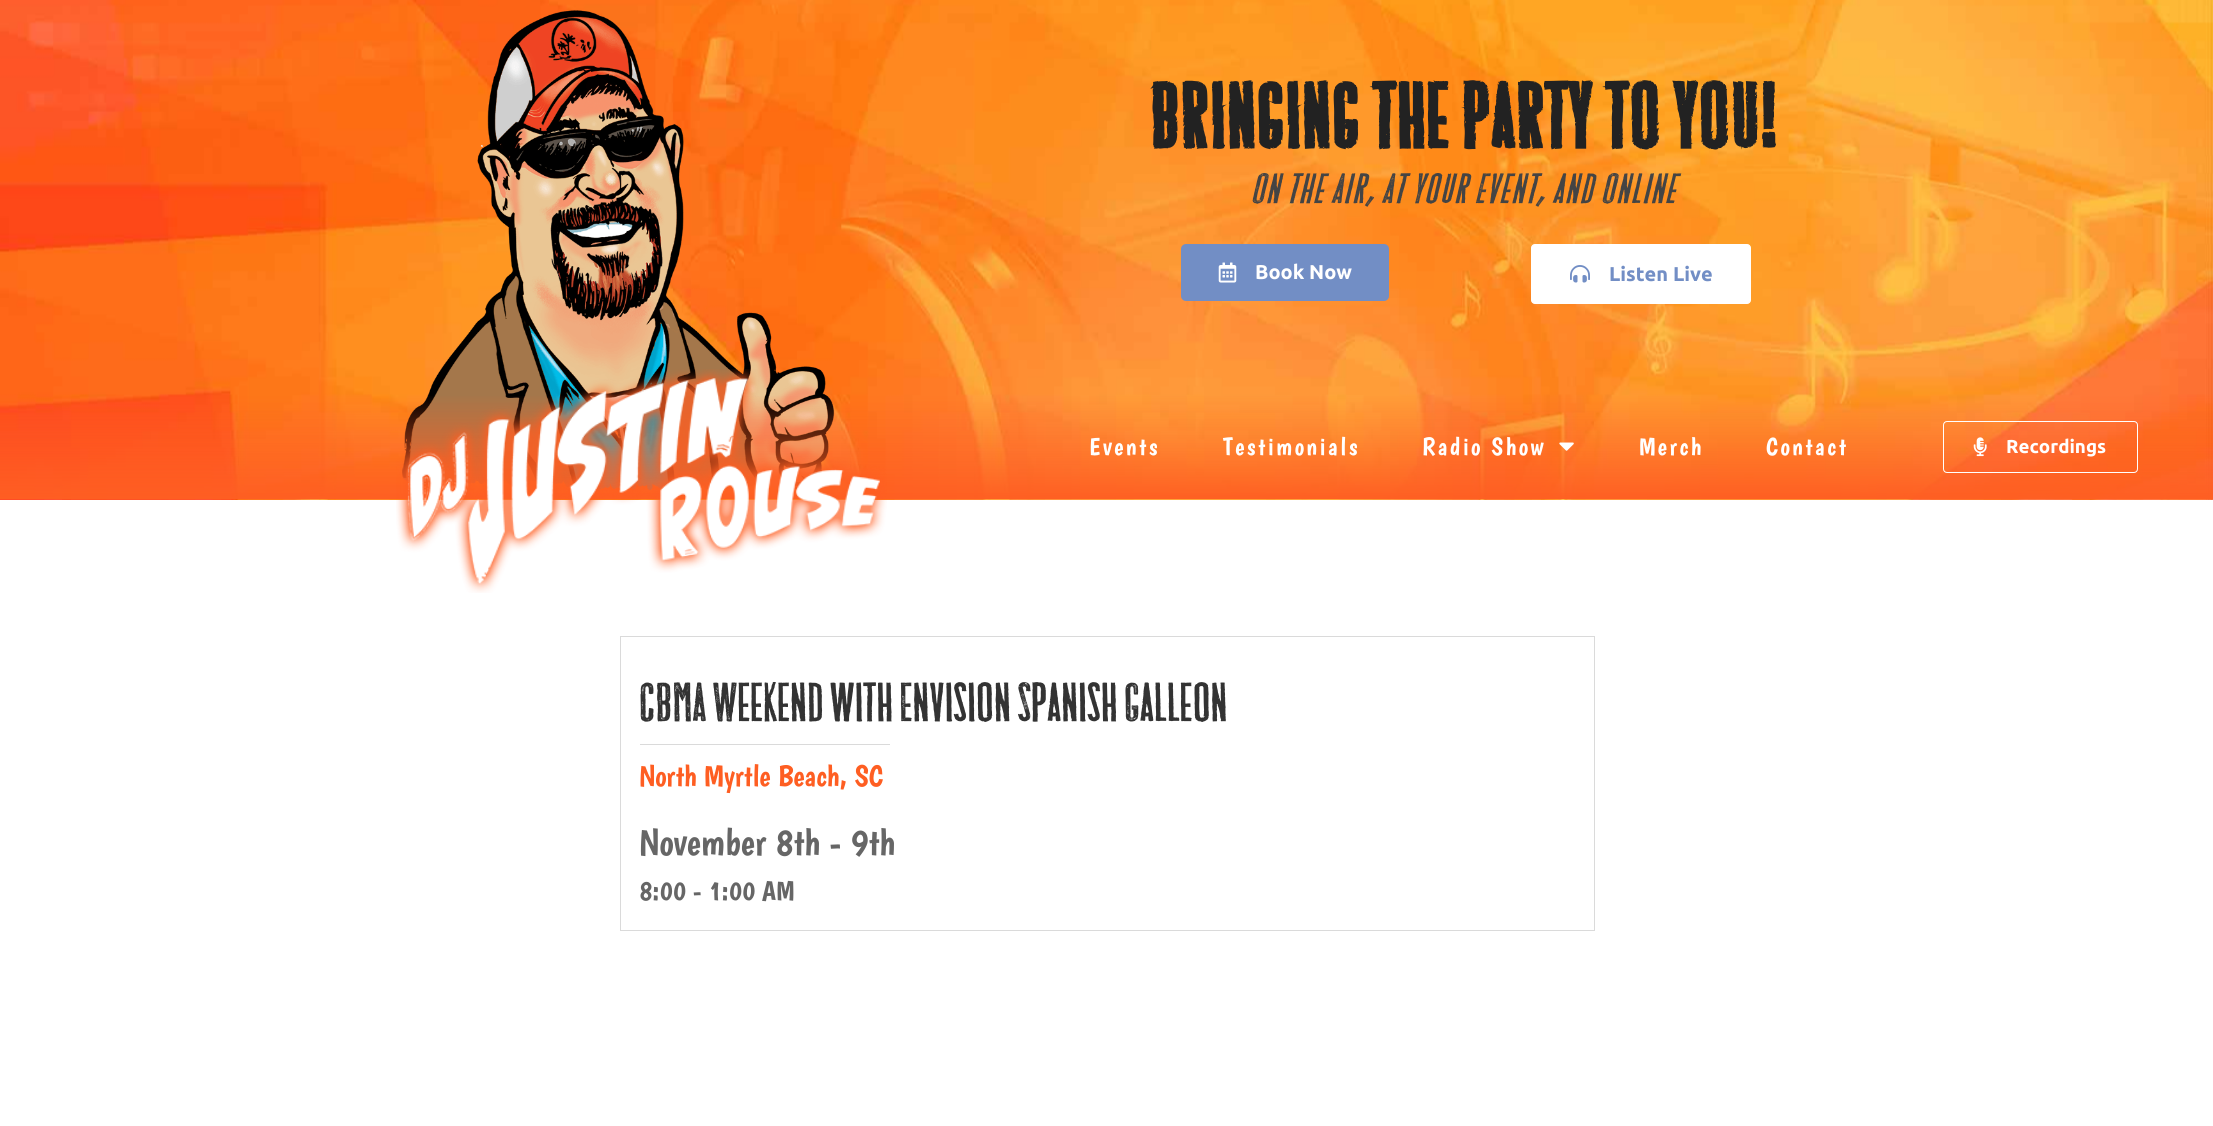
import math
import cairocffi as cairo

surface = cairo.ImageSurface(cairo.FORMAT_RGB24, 2213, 1126)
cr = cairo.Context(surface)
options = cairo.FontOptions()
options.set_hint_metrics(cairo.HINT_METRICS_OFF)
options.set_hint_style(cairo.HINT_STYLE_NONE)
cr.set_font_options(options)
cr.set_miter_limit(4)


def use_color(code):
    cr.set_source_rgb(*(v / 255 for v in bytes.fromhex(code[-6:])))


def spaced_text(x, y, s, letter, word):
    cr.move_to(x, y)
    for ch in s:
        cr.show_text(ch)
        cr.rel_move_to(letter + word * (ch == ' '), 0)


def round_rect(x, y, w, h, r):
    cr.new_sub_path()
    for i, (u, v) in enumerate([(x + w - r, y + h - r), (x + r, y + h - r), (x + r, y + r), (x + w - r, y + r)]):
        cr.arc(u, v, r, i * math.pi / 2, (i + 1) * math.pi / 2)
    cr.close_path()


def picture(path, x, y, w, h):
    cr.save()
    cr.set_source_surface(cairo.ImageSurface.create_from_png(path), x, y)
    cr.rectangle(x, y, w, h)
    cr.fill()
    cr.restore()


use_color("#ffffff")
cr.paint()
picture("img1.png", 0, 0, 2213, 500)
picture("img2.png", 402, 10, 433, 482)
gradient = cairo.LinearGradient(1107, 394, 1107, 499)
gradient.add_color_stop_rgba(0, 0.996, 0.369, 0.133, 0)
gradient.add_color_stop_rgba(1, 0.996, 0.369, 0.133, 0.98)
cr.set_source(gradient)
cr.rectangle(0, 396, 2213, 103)
cr.fill()
picture("img3.png", 396, 369, 491, 224)
cr.select_font_face("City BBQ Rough", cairo.FONT_SLANT_NORMAL, cairo.FONT_WEIGHT_BOLD)
cr.set_font_size(100)
use_color("#222222")
spaced_text(1149, 148, "Bringing The Party To You!", 1.9, 0)
cr.select_font_face("City BBQ Rough Medium", cairo.FONT_SLANT_ITALIC)
cr.set_font_size(46.25)
use_color("#444444")
spaced_text(1250, 203, "On the Air, At Your Event, and Online", 1.55, 0)
use_color("#728ec5")
round_rect(1181, 244, 208, 57, 5)
cr.fill()
picture("img4.png", 1218, 262, 19, 21)
cr.select_font_face("Ubuntu", cairo.FONT_SLANT_NORMAL, cairo.FONT_WEIGHT_BOLD)
cr.set_font_size(20)
use_color("#ffffff")
cr.move_to(1255, 279)
cr.show_text("Book Now")
round_rect(1531.5, 244.5, 219, 59, 3.5)
cr.fill_preserve()
cr.set_line_width(1)
cr.stroke()
picture("img5.png", 1570, 265, 20, 18)
use_color("#728ec5")
cr.move_to(1609, 281)
cr.show_text("Listen Live")
cr.select_font_face("Boogaloo")
cr.set_font_size(25)
use_color("#ffffff")
spaced_text(1089, 455, "Events", 2.5, 0)
spaced_text(1223, 455, "Testimonials", 2.5, 0)
spaced_text(1422, 455, "Radio Show", 2.5, 0)
picture("img6.png", 1559, 442, 15, 9)
spaced_text(1639, 455, "Merch", 2.5, 0)
spaced_text(1766, 455, "Contact", 2.5, 0)
round_rect(1943.5, 421.5, 194, 51, 3.5)
cr.stroke()
picture("img7.png", 1973, 437, 14, 20)
cr.select_font_face("Ubuntu", cairo.FONT_SLANT_NORMAL, cairo.FONT_WEIGHT_BOLD)
cr.set_font_size(18.75)
cr.move_to(2006, 453)
cr.show_text("Recordings")
cr.rectangle(620.5, 636.5, 974, 294)
use_color("#dadada")
cr.stroke()
cr.select_font_face("City BBQ Rough Medium")
cr.set_font_size(60)
use_color("#333333")
cr.move_to(639, 721)
cr.show_text("CBMA Weekend with Envision Spanish Galleon")
use_color("#dadada")
cr.rectangle(640, 744, 250, 1)
cr.fill()
cr.select_font_face("Boogaloo")
cr.set_font_size(30)
use_color("#fe5e22")
cr.move_to(639, 786)
cr.show_text("North Myrtle Beach, SC")
cr.set_font_size(37.5)
use_color("#666666")
cr.move_to(639, 855)
cr.show_text("November 8th - 9th")
cr.set_font_size(27.5)
cr.move_to(639, 900)
cr.show_text("8:00 - 1:00 AM")
surface.write_to_png("result.png")
